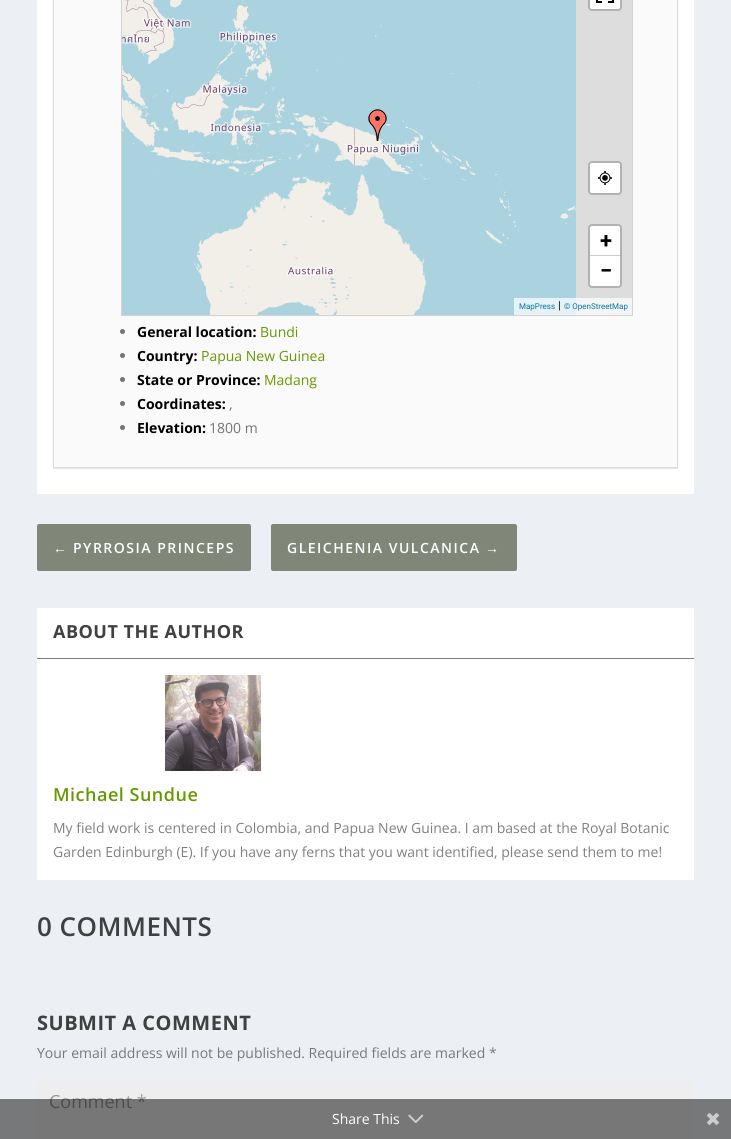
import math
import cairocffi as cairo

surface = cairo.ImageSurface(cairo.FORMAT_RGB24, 731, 1139)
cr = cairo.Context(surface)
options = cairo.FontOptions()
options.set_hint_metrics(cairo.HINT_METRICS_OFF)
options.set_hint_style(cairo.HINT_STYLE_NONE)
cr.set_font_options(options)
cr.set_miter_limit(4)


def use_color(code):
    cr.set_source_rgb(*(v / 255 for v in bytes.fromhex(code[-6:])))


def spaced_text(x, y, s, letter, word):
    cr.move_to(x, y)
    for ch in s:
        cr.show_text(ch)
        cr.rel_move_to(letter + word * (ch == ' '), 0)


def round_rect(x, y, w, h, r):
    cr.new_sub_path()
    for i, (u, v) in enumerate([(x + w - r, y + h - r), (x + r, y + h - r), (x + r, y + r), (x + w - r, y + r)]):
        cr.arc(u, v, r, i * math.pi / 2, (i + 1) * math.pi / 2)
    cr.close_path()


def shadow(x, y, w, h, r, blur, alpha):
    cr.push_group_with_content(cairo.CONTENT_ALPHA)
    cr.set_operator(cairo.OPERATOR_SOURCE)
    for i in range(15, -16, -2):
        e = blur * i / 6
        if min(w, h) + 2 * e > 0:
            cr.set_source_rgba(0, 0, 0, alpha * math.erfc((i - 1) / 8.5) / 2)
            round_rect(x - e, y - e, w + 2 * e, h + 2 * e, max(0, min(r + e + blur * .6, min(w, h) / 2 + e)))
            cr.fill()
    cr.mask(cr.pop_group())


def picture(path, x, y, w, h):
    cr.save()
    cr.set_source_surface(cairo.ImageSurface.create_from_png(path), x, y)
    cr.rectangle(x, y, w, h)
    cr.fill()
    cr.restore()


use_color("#ecf0f5")
cr.paint()
use_color("#ffffff")
cr.rectangle(37, 0, 657, 494)
cr.fill()
use_color("#000000")
shadow(53, -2, 625, 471, 0, 0.5, 0.1)
cr.rectangle(53.5, -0.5, 624, 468)
use_color("#dddddd")
cr.set_line_width(1)
cr.stroke()
use_color("#fafafa")
cr.rectangle(54, 0, 623, 467)
cr.fill()
cr.rectangle(121.5, -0.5, 511, 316)
use_color("#d3d3d3")
cr.stroke()
use_color("#dddddd")
cr.rectangle(576, 0, 56, 315)
cr.fill()
round_rect(589, -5, 32, 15, 3)
use_color("#b1b1b1")
cr.set_line_width(2)
cr.stroke()
use_color("#ffffff")
round_rect(590, -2, 30, 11, 2)
cr.fill()
picture("img1.png", 596, 0, 18, 3)
round_rect(589, 162, 32, 32, 3)
use_color("#b1b1b1")
cr.stroke()
use_color("#ffffff")
round_rect(590, 163, 30, 30, 2)
cr.fill()
picture("img2.png", 598, 171, 14, 14)
picture("img3.png", 122, 0, 198, 113)
picture("img4.png", 320, 0, 256, 113)
picture("img5.png", 122, 113, 198, 202)
picture("img6.png", 320, 113, 256, 202)
picture("img7.png", 368, 109, 19, 32)
round_rect(589, 225, 32, 62, 3)
use_color("#b1b1b1")
cr.stroke()
use_color("#ffffff")
cr.new_path()
cr.move_to(592, 226)
cr.line_to(618, 226)
cr.curve_to(619, 226, 620, 227, 620, 228)
cr.line_to(620, 256)
cr.line_to(590, 256)
cr.line_to(590, 228)
cr.curve_to(590, 227, 591, 226, 592, 226)
cr.close_path()
cr.fill()
use_color("#cccccc")
cr.rectangle(590, 255, 30, 1)
cr.fill()
cr.select_font_face("Roboto", cairo.FONT_SLANT_NORMAL, cairo.FONT_WEIGHT_BOLD)
cr.set_font_size(22)
use_color("#000000")
cr.move_to(600, 248)
cr.show_text("+")
use_color("#ffffff")
cr.new_path()
cr.move_to(590, 256)
cr.line_to(620, 256)
cr.line_to(620, 284)
cr.curve_to(620, 285, 619, 286, 618, 286)
cr.line_to(592, 286)
cr.curve_to(591, 286, 590, 285, 590, 284)
cr.close_path()
cr.fill()
use_color("#000000")
cr.move_to(600, 278)
cr.show_text("−")
cr.set_source_rgba(1, 1, 1, 0.7)
cr.rectangle(514, 298, 118, 17)
cr.fill()
cr.select_font_face("Roboto")
cr.set_font_size(8)
use_color("#0078a8")
cr.move_to(519, 309)
cr.show_text("MapPress")
cr.set_font_size(11)
use_color("#000000")
cr.move_to(558, 309)
cr.show_text("|")
cr.set_font_size(8)
use_color("#0078a8")
cr.move_to(564, 309)
cr.show_text("© OpenStreetMap")
use_color("#737373")
cr.new_path()
cr.arc(122.5, 331.5, 2.5, 0, 2 * math.pi)
cr.fill()
cr.select_font_face("Open Sans", cairo.FONT_SLANT_NORMAL, cairo.FONT_WEIGHT_BOLD)
cr.set_font_size(14)
use_color("#000000")
cr.move_to(137, 337)
cr.show_text("General location:")
cr.select_font_face("Open Sans")
use_color("#669900")
cr.move_to(260, 337)
cr.show_text("Bundi")
use_color("#737373")
cr.new_path()
cr.arc(122.5, 355.5, 2.5, 0, 2 * math.pi)
cr.fill()
cr.select_font_face("Open Sans", cairo.FONT_SLANT_NORMAL, cairo.FONT_WEIGHT_BOLD)
use_color("#000000")
cr.move_to(137, 361)
cr.show_text("Country:")
cr.select_font_face("Open Sans")
use_color("#669900")
cr.move_to(201, 361)
cr.show_text("Papua New Guinea")
use_color("#737373")
cr.new_path()
cr.arc(122.5, 379.5, 2.5, 0, 2 * math.pi)
cr.fill()
cr.select_font_face("Open Sans", cairo.FONT_SLANT_NORMAL, cairo.FONT_WEIGHT_BOLD)
use_color("#000000")
cr.move_to(137, 385)
cr.show_text("State or Province:")
cr.select_font_face("Open Sans")
use_color("#669900")
cr.move_to(264, 385)
cr.show_text("Madang")
use_color("#737373")
cr.new_path()
cr.arc(122.5, 403.5, 2.5, 0, 2 * math.pi)
cr.fill()
cr.select_font_face("Open Sans", cairo.FONT_SLANT_NORMAL, cairo.FONT_WEIGHT_BOLD)
use_color("#000000")
cr.move_to(137, 409)
cr.show_text("Coordinates:")
cr.select_font_face("Open Sans")
use_color("#737373")
cr.move_to(229, 409)
cr.show_text(",")
cr.new_path()
cr.arc(122.5, 427.5, 2.5, 0, 2 * math.pi)
cr.fill()
cr.select_font_face("Open Sans", cairo.FONT_SLANT_NORMAL, cairo.FONT_WEIGHT_BOLD)
use_color("#000000")
cr.move_to(137, 433)
cr.show_text("Elevation:")
cr.select_font_face("Open Sans")
use_color("#737373")
cr.move_to(209, 433)
cr.show_text("1800 m")
use_color("#808779")
round_rect(37, 524, 214, 47, 2)
cr.fill()
cr.select_font_face("Liberation Sans", cairo.FONT_SLANT_NORMAL, cairo.FONT_WEIGHT_BOLD)
use_color("#ffffff")
spaced_text(53, 553, "←", 1.5, 0)
cr.select_font_face("Open Sans SemiBold")
spaced_text(73, 553, "PYRROSIA PRINCEPS", 1.5, 0)
use_color("#808779")
round_rect(271, 524, 246, 47, 2)
cr.fill()
use_color("#ffffff")
spaced_text(287, 553, "GLEICHENIA VULCANICA", 1.5, 0)
cr.select_font_face("Liberation Sans", cairo.FONT_SLANT_NORMAL, cairo.FONT_WEIGHT_BOLD)
spaced_text(485, 553, "→", 1.5, 0)
cr.rectangle(37, 608, 657, 272)
cr.fill()
cr.select_font_face("Open Sans", cairo.FONT_SLANT_NORMAL, cairo.FONT_WEIGHT_BOLD)
cr.set_font_size(18)
use_color("#404040")
spaced_text(53, 638, "ABOUT THE AUTHOR", 0.5, 0)
use_color("#7f7f7f")
cr.rectangle(37, 658, 657, 1)
cr.fill()
picture("img8.png", 165, 675, 96, 96)
cr.select_font_face("Open Sans SemiBold")
use_color("#669900")
spaced_text(53, 801, "Michael Sundue", 0.5, 0)
cr.select_font_face("Open Sans")
cr.set_font_size(14)
use_color("#808080")
cr.move_to(53, 833)
cr.show_text("My field work is centered in Colombia, and Papua New Guinea. I am based at the Royal Botanic")
cr.move_to(53, 857)
cr.show_text("Garden Edinburgh (E). If you have any ferns that you want identified, please send them to me!")
cr.select_font_face("Open Sans SemiBold")
cr.set_font_size(26)
use_color("#404040")
spaced_text(37, 936, "0 COMMENTS", 0.5, 0)
cr.select_font_face("Open Sans", cairo.FONT_SLANT_NORMAL, cairo.FONT_WEIGHT_BOLD)
cr.set_font_size(20)
spaced_text(37, 1030, "SUBMIT A COMMENT", 0.5, 0)
cr.select_font_face("Open Sans")
cr.set_font_size(14)
use_color("#76787b")
cr.move_to(37, 1058)
cr.show_text("Your email address will not be published. Required fields are marked *")
use_color("#eeeeee")
round_rect(37, 1080, 657, 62, 3)
cr.fill()
cr.set_font_size(18)
use_color("#999999")
cr.move_to(49, 1108)
cr.show_text("Comment *")
cr.set_source_rgba(0, 0, 0, 0.5)
cr.rectangle(0, 1099, 731, 40)
cr.fill()
cr.set_font_size(14)
use_color("#ffffff")
cr.move_to(332, 1124)
cr.show_text("Share This")
picture("img9.png", 408, 1114, 16, 9)
picture("img10.png", 707, 1113, 12, 12)
surface.write_to_png("result.png")
